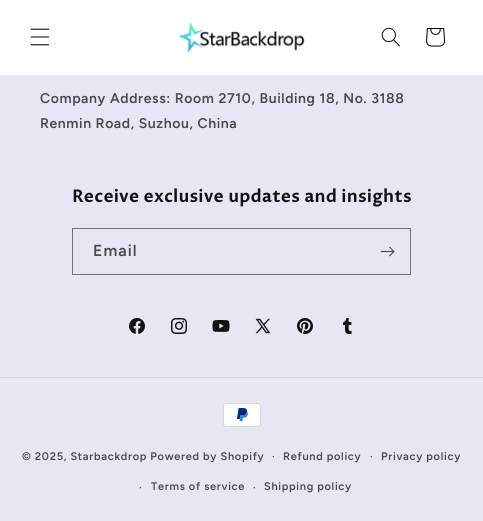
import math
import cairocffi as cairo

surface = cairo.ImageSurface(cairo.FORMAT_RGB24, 483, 521)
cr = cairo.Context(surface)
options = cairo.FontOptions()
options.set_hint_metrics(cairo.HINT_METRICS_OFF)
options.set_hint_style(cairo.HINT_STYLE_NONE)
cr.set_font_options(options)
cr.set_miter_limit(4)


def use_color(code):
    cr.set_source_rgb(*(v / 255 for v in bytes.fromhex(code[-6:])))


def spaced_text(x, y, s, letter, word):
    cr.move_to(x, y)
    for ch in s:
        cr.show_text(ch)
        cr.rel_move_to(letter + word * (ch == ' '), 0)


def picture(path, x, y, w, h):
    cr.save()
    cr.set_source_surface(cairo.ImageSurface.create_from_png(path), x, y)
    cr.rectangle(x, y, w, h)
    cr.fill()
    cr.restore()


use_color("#e5e8f3")
cr.paint()
use_color("#ffffff")
cr.rectangle(0, 0, 483, 75)
cr.fill()
use_color("#ececec")
cr.rectangle(0, 75, 483, 1)
cr.fill()
picture("img1.png", 30, 28, 20, 18)
picture("img2.png", 178, 22, 127, 31)
picture("img3.png", 381, 27, 19, 20)
picture("img4.png", 426, 28, 20, 19)
cr.select_font_face("Figtree SemiBold")
cr.set_font_size(14)
use_color("#47484a")
spaced_text(40, 103, "Company Address: Room 2710, Building 18, No. 3188", 0.6, 0)
spaced_text(40, 128, "Renmin Road, Suzhou, China", 0.6, 0)
cr.select_font_face("Proza Libre", cairo.FONT_SLANT_NORMAL, cairo.FONT_WEIGHT_BOLD)
cr.set_font_size(16.8)
use_color("#121212")
spaced_text(72, 202, "Receive exclusive updates and insights", 0.65, 0)
cr.rectangle(72.5, 228.5, 338, 46)
use_color("#717277")
cr.set_line_width(1)
cr.stroke()
cr.select_font_face("Figtree SemiBold")
cr.set_font_size(16)
use_color("#47484a")
spaced_text(93, 256, "Email", 1, 0)
picture("img5.png", 380, 246, 15, 11)
picture("img6.png", 129, 318, 16, 16)
picture("img7.png", 171, 318, 16, 16)
picture("img8.png", 212, 320, 18, 12)
picture("img9.png", 255, 318, 16, 16)
picture("img10.png", 297, 318, 16, 16)
picture("img11.png", 343, 318, 9, 16)
use_color("#d4d7e1")
cr.rectangle(0, 377, 483, 1)
cr.fill()
picture("img12.png", 223, 403, 38, 24)
cr.set_font_size(11)
use_color("#47484a")
spaced_text(22, 460, "© 2025, Starbackdrop Powered by Shopify", 0.7, 0)
cr.set_font_size(10)
spaced_text(272, 460, "·", 0.7, 0)
cr.set_font_size(11)
spaced_text(283, 460, "Refund policy", 0.7, 0)
cr.set_font_size(10)
spaced_text(370, 460, "·", 0.7, 0)
cr.set_font_size(11)
spaced_text(381, 460, "Privacy policy", 0.7, 0)
cr.set_font_size(10)
spaced_text(139, 491, "·", 0.7, 0)
cr.set_font_size(11)
spaced_text(151, 490, "Terms of service", 0.7, 0)
cr.set_font_size(10)
spaced_text(253, 491, "·", 0.7, 0)
cr.set_font_size(11)
spaced_text(264, 490, "Shipping policy", 0.7, 0)
surface.write_to_png("result.png")
